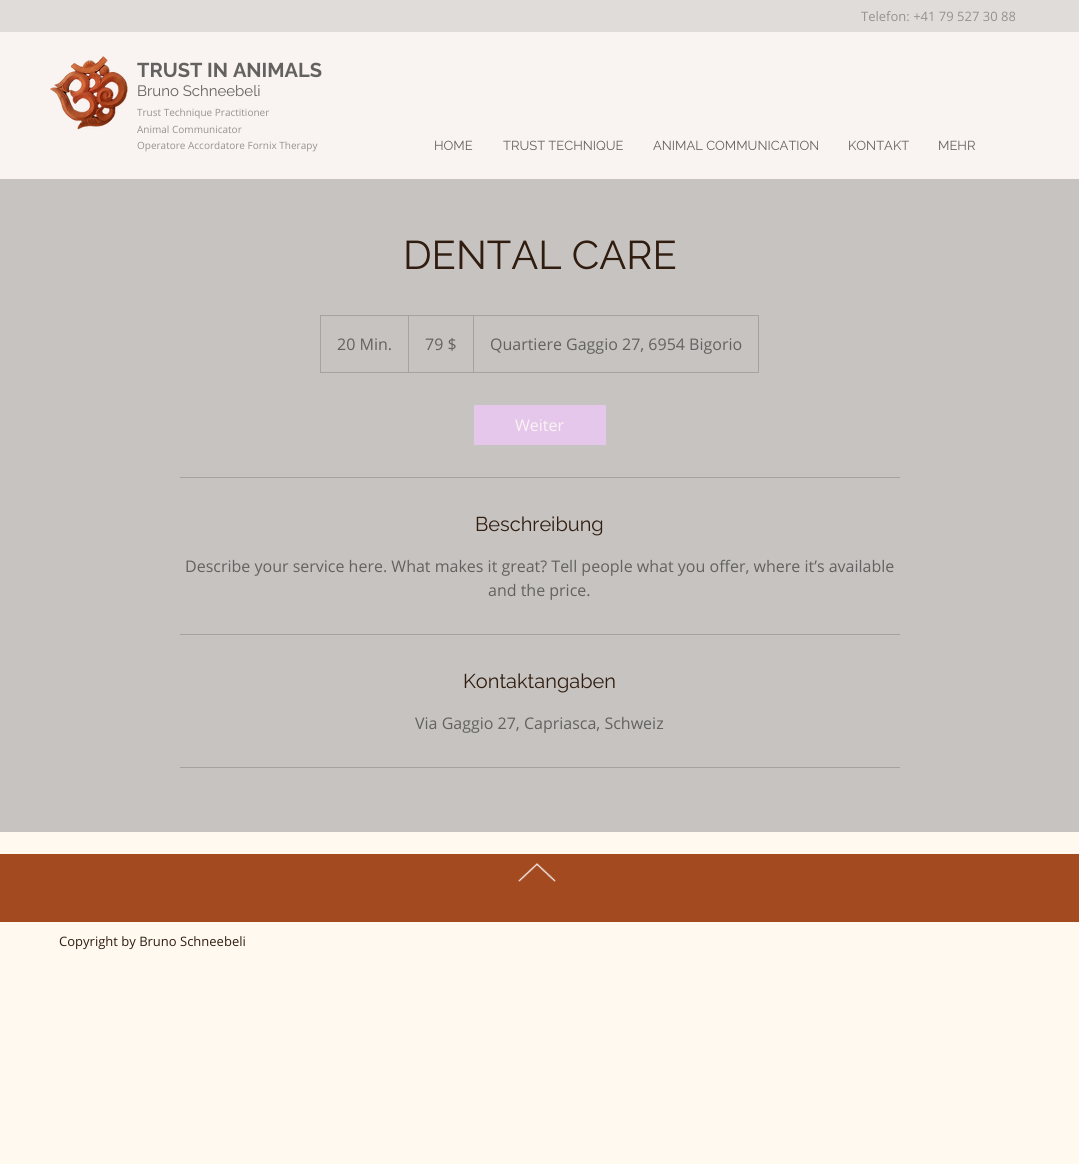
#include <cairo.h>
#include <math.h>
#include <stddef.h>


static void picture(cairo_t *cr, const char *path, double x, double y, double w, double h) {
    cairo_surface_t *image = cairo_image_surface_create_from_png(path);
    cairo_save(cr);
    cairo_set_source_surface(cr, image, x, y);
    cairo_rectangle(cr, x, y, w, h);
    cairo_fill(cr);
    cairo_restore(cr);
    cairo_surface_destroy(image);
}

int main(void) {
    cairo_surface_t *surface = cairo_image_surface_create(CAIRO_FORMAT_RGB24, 1079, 1164);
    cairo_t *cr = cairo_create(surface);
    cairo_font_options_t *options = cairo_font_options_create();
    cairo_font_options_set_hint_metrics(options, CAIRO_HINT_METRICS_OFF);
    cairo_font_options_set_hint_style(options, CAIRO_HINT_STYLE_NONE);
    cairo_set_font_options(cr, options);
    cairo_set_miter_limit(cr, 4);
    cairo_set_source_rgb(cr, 1, 0.973, 0.941);
    cairo_paint(cr);
    cairo_set_source_rgb(cr, 0.878, 0.863, 0.851);
    cairo_rectangle(cr, 0, 0, 1079, 32);
    cairo_fill(cr);
    cairo_select_font_face(cr, "Open Sans", CAIRO_FONT_SLANT_NORMAL, CAIRO_FONT_WEIGHT_NORMAL);
    cairo_set_font_size(cr, 13);
    cairo_set_source_rgb(cr, 0.584, 0.573, 0.569);
    cairo_move_to(cr, 861, 21);
    cairo_show_text(cr, "Telefon: +41 79 527 30 88");
    cairo_set_source_rgb(cr, 0.976, 0.957, 0.945);
    cairo_rectangle(cr, 0, 32, 1079, 147);
    cairo_fill(cr);
    picture(cr, "img1.png", 50, 56, 78, 74);
    cairo_select_font_face(cr, "Raleway", CAIRO_FONT_SLANT_NORMAL, CAIRO_FONT_WEIGHT_BOLD);
    cairo_set_font_size(cr, 20);
    cairo_set_source_rgb(cr, 0.388, 0.384, 0.376);
    cairo_move_to(cr, 137, 77);
    cairo_show_text(cr, "TRUST IN ANIMALS");
    cairo_select_font_face(cr, "Raleway", CAIRO_FONT_SLANT_NORMAL, CAIRO_FONT_WEIGHT_NORMAL);
    cairo_set_font_size(cr, 15);
    cairo_move_to(cr, 137, 96);
    cairo_show_text(cr, "Bruno Schneebeli");
    cairo_select_font_face(cr, "Open Sans", CAIRO_FONT_SLANT_NORMAL, CAIRO_FONT_WEIGHT_NORMAL);
    cairo_set_font_size(cr, 10);
    cairo_set_source_rgb(cr, 0.584, 0.573, 0.569);
    cairo_move_to(cr, 137, 116);
    cairo_show_text(cr, "Trust Technique Practitioner");
    cairo_move_to(cr, 137, 133);
    cairo_show_text(cr, "Animal Communicator");
    cairo_move_to(cr, 137, 149);
    cairo_show_text(cr, "Operatore Accordatore Fornix Therapy");
    cairo_select_font_face(cr, "Raleway", CAIRO_FONT_SLANT_NORMAL, CAIRO_FONT_WEIGHT_NORMAL);
    cairo_set_font_size(cr, 13);
    cairo_set_source_rgb(cr, 0.388, 0.384, 0.376);
    cairo_move_to(cr, 434, 150);
    cairo_show_text(cr, "HOME");
    cairo_move_to(cr, 503, 150);
    cairo_show_text(cr, "TRUST TECHNIQUE");
    cairo_move_to(cr, 653, 150);
    cairo_show_text(cr, "ANIMAL COMMUNICATION");
    cairo_move_to(cr, 848, 150);
    cairo_show_text(cr, "KONTAKT");
    cairo_move_to(cr, 938, 150);
    cairo_show_text(cr, "MEHR");
    cairo_set_source_rgb(cr, 0.776, 0.765, 0.757);
    cairo_rectangle(cr, 0, 179, 1079, 653);
    cairo_fill(cr);
    cairo_set_font_size(cr, 40);
    cairo_set_source_rgb(cr, 0.188, 0.114, 0.063);
    cairo_move_to(cr, 403, 269);
    cairo_show_text(cr, "DENTAL CARE");
    cairo_rectangle(cr, 320.5, 315.5, 438, 57);
    cairo_set_source_rgb(cr, 0.659, 0.635, 0.62);
    cairo_set_line_width(cr, 1);
    cairo_stroke(cr);
    cairo_select_font_face(cr, "Open Sans", CAIRO_FONT_SLANT_NORMAL, CAIRO_FONT_WEIGHT_NORMAL);
    cairo_set_font_size(cr, 16);
    cairo_set_source_rgb(cr, 0.388, 0.384, 0.376);
    cairo_move_to(cr, 337, 350);
    cairo_show_text(cr, "20 Min.");
    cairo_set_source_rgb(cr, 0.659, 0.635, 0.62);
    cairo_new_path(cr);
    cairo_move_to(cr, 408, 372);
    cairo_line_to(cr, 408, 315);
    cairo_line_to(cr, 409, 316);
    cairo_line_to(cr, 409, 372);
    cairo_close_path(cr);
    cairo_fill(cr);
    cairo_set_source_rgb(cr, 0.388, 0.384, 0.376);
    cairo_move_to(cr, 425, 350);
    cairo_show_text(cr, "79 $");
    cairo_set_source_rgb(cr, 0.659, 0.635, 0.62);
    cairo_new_path(cr);
    cairo_move_to(cr, 473, 372);
    cairo_line_to(cr, 473, 315);
    cairo_line_to(cr, 474, 316);
    cairo_line_to(cr, 474, 372);
    cairo_close_path(cr);
    cairo_fill(cr);
    cairo_set_source_rgb(cr, 0.388, 0.384, 0.376);
    cairo_move_to(cr, 490, 350);
    cairo_show_text(cr, "Quartiere Gaggio 27, 6954 Bigorio");
    cairo_set_source_rgb(cr, 0.902, 0.78, 0.922);
    cairo_rectangle(cr, 474, 405, 132, 40);
    cairo_fill(cr);
    cairo_set_source_rgb(cr, 0.973, 0.957, 0.945);
    cairo_move_to(cr, 515, 431);
    cairo_show_text(cr, "Weiter");
    cairo_set_source_rgb(cr, 0.659, 0.635, 0.62);
    cairo_rectangle(cr, 180, 477, 720, 1);
    cairo_fill(cr);
    cairo_select_font_face(cr, "Raleway", CAIRO_FONT_SLANT_NORMAL, CAIRO_FONT_WEIGHT_NORMAL);
    cairo_set_font_size(cr, 20);
    cairo_set_source_rgb(cr, 0.188, 0.114, 0.063);
    cairo_move_to(cr, 475, 531);
    cairo_show_text(cr, "Beschreibung");
    cairo_select_font_face(cr, "Open Sans", CAIRO_FONT_SLANT_NORMAL, CAIRO_FONT_WEIGHT_NORMAL);
    cairo_set_font_size(cr, 16);
    cairo_set_source_rgb(cr, 0.388, 0.384, 0.376);
    cairo_move_to(cr, 185, 572);
    cairo_show_text(cr, "Describe your service here. What makes it great? Tell people what you offer, where it’s available");
    cairo_move_to(cr, 488, 596);
    cairo_show_text(cr, "and the price.");
    cairo_set_source_rgb(cr, 0.659, 0.635, 0.62);
    cairo_rectangle(cr, 180, 634, 720, 1);
    cairo_fill(cr);
    cairo_select_font_face(cr, "Raleway", CAIRO_FONT_SLANT_NORMAL, CAIRO_FONT_WEIGHT_NORMAL);
    cairo_set_font_size(cr, 20);
    cairo_set_source_rgb(cr, 0.188, 0.114, 0.063);
    cairo_move_to(cr, 463, 688);
    cairo_show_text(cr, "Kontaktangaben");
    cairo_select_font_face(cr, "Open Sans", CAIRO_FONT_SLANT_NORMAL, CAIRO_FONT_WEIGHT_NORMAL);
    cairo_set_font_size(cr, 16);
    cairo_set_source_rgb(cr, 0.388, 0.384, 0.376);
    cairo_move_to(cr, 415, 729);
    cairo_show_text(cr, "Via Gaggio 27, Capriasca, Schweiz");
    cairo_set_source_rgb(cr, 0.659, 0.635, 0.62);
    cairo_rectangle(cr, 180, 767, 720, 1);
    cairo_fill(cr);
    cairo_set_source_rgb(cr, 0.639, 0.29, 0.129);
    cairo_rectangle(cr, 0, 854, 1079, 68);
    cairo_fill(cr);
    picture(cr, "img2.png", 518, 863, 38, 19);
    cairo_set_font_size(cr, 13);
    cairo_set_source_rgb(cr, 0.188, 0.114, 0.063);
    cairo_move_to(cr, 59, 946);
    cairo_show_text(cr, "Copyright by Bruno Schneebeli");
    cairo_surface_write_to_png(surface, "page.png");
    cairo_font_options_destroy(options);
    cairo_destroy(cr);
    cairo_surface_destroy(surface);
    return 0;
}
